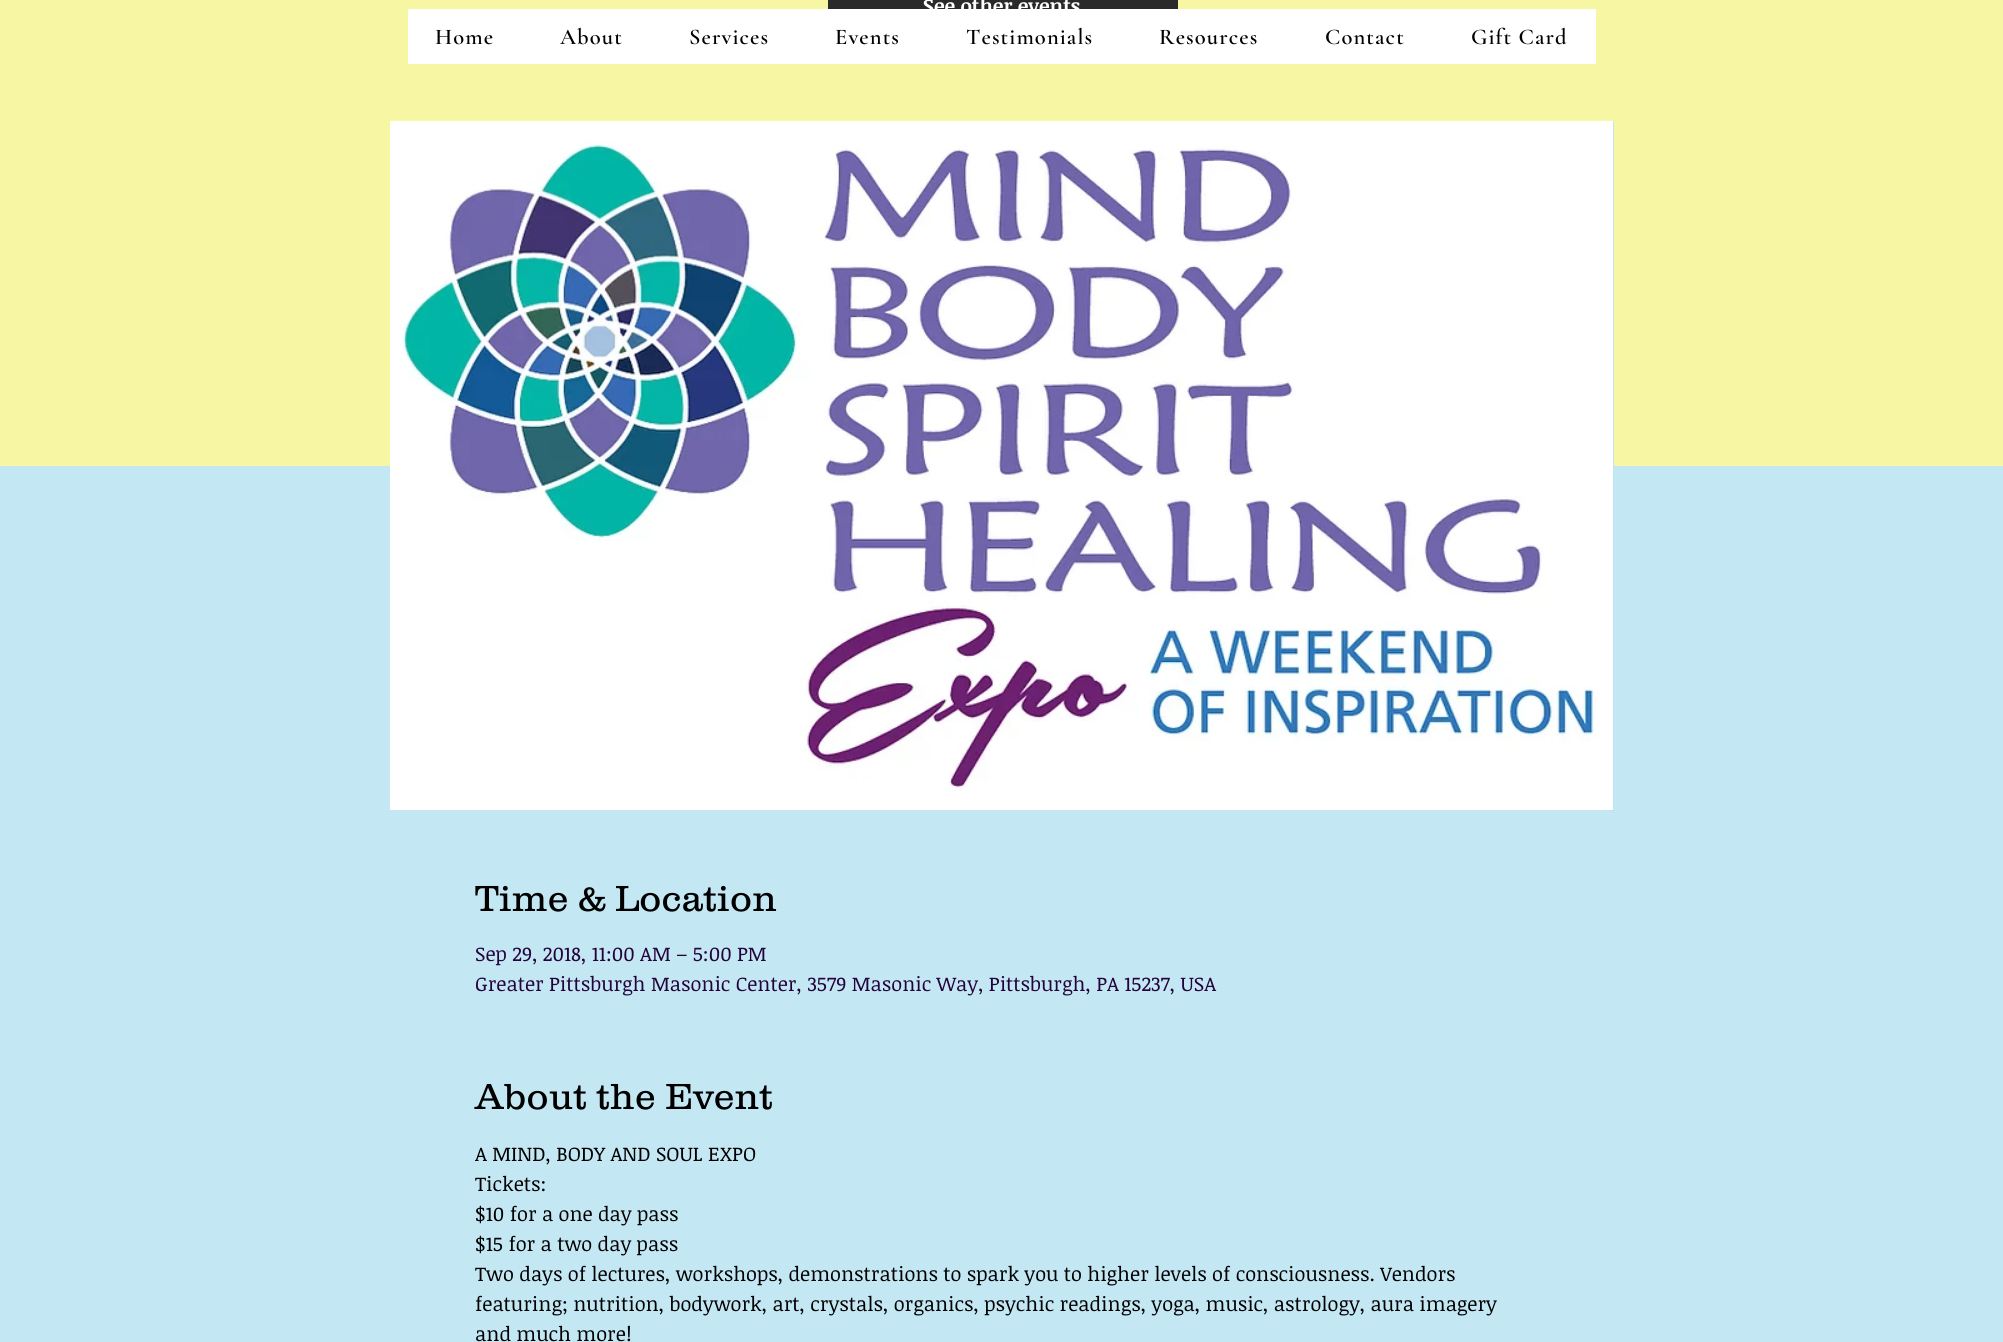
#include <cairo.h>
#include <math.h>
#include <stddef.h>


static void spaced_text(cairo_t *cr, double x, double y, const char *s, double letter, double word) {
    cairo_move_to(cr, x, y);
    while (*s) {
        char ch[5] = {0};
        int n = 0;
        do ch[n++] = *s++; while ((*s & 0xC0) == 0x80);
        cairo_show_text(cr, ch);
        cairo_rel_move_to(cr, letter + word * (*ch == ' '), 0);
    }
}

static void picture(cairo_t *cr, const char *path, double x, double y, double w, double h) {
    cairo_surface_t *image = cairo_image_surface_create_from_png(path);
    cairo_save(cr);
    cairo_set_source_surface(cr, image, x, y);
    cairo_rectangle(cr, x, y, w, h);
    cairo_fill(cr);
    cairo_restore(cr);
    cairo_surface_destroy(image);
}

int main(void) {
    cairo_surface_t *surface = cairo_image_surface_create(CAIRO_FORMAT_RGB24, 2003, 1342);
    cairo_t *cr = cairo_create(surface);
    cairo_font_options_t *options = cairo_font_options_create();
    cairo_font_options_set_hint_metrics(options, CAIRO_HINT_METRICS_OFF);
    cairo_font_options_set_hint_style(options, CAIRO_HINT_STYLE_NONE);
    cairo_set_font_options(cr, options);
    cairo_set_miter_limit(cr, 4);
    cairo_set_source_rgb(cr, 0.769, 0.906, 0.957);
    cairo_paint(cr);
    cairo_set_source_rgb(cr, 0.965, 0.965, 0.639);
    cairo_rectangle(cr, 0, 0, 2003, 466);
    cairo_fill(cr);
    cairo_set_source_rgb(cr, 0.165, 0.165, 0.165);
    cairo_rectangle(cr, 828, 0, 350, 9);
    cairo_fill(cr);
    cairo_select_font_face(cr, "Noticia Text", CAIRO_FONT_SLANT_NORMAL, CAIRO_FONT_WEIGHT_BOLD);
    cairo_set_font_size(cr, 20);
    cairo_set_source_rgb(cr, 1, 1, 1);
    cairo_move_to(cr, 923, 13);
    cairo_show_text(cr, "See other events");
    cairo_set_source_rgb(cr, 0.471, 0.745, 0.941);
    cairo_rectangle(cr, 390, 121, 1224, 690);
    cairo_fill(cr);
    picture(cr, "img1.png", 390, 120, 1224, 691);
    cairo_select_font_face(cr, "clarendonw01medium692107 Light", CAIRO_FONT_SLANT_NORMAL, CAIRO_FONT_WEIGHT_NORMAL);
    cairo_set_font_size(cr, 37.5);
    cairo_set_source_rgb(cr, 0, 0, 0);
    cairo_move_to(cr, 475, 911);
    cairo_show_text(cr, "Time & Location");
    cairo_select_font_face(cr, "Noticia Text", CAIRO_FONT_SLANT_NORMAL, CAIRO_FONT_WEIGHT_NORMAL);
    cairo_set_font_size(cr, 20);
    cairo_set_source_rgb(cr, 0.141, 0.012, 0.235);
    cairo_move_to(cr, 475, 961);
    cairo_show_text(cr, "Sep 29, 2018, 11:00 AM – 5:00 PM");
    cairo_move_to(cr, 475, 991);
    cairo_show_text(cr, "Greater Pittsburgh Masonic Center, 3579 Masonic Way, Pittsburgh, PA 15237, USA");
    cairo_select_font_face(cr, "clarendonw01medium692107 Light", CAIRO_FONT_SLANT_NORMAL, CAIRO_FONT_WEIGHT_NORMAL);
    cairo_set_font_size(cr, 37.5);
    cairo_set_source_rgb(cr, 0, 0, 0);
    cairo_move_to(cr, 475, 1109);
    cairo_show_text(cr, "About the Event");
    cairo_select_font_face(cr, "Noticia Text", CAIRO_FONT_SLANT_NORMAL, CAIRO_FONT_WEIGHT_NORMAL);
    cairo_set_font_size(cr, 20);
    cairo_move_to(cr, 475, 1161);
    cairo_show_text(cr, "A MIND, BODY AND SOUL EXPO");
    cairo_move_to(cr, 475, 1191);
    cairo_show_text(cr, "Tickets:");
    cairo_move_to(cr, 475, 1221);
    cairo_show_text(cr, "$10 for a one day pass");
    cairo_move_to(cr, 475, 1251);
    cairo_show_text(cr, "$15 for a two day pass");
    cairo_move_to(cr, 475, 1281);
    cairo_show_text(cr, "Two days of lectures, workshops, demonstrations to spark you to higher levels of consciousness. Vendors");
    cairo_move_to(cr, 475, 1311);
    cairo_show_text(cr, "featuring; nutrition, bodywork, art, crystals, organics, psychic readings, yoga, music, astrology, aura imagery");
    cairo_move_to(cr, 475, 1341);
    cairo_show_text(cr, "and much more!");
    cairo_set_source_rgb(cr, 1, 1, 1);
    cairo_rectangle(cr, 408, 9, 1188, 55);
    cairo_fill(cr);
    cairo_select_font_face(cr, "Cormorant Garamond SemiBold", CAIRO_FONT_SLANT_NORMAL, CAIRO_FONT_WEIGHT_NORMAL);
    cairo_set_font_size(cr, 22.5);
    cairo_set_source_rgb(cr, 0, 0, 0);
    spaced_text(cr, 435, 44, "Home", 1.1, 0);
    spaced_text(cr, 560, 44, "About", 1.1, 0);
    spaced_text(cr, 689, 44, "Services", 1.1, 0);
    spaced_text(cr, 835, 44, "Events", 1.1, 0);
    spaced_text(cr, 966, 44, "Testimonials", 1.1, 0);
    spaced_text(cr, 1159, 44, "Resources", 1.1, 0);
    spaced_text(cr, 1325, 44, "Contact", 1.1, 0);
    spaced_text(cr, 1471, 44, "Gift Card", 1.1, 0);
    cairo_surface_write_to_png(surface, "page.png");
    cairo_font_options_destroy(options);
    cairo_destroy(cr);
    cairo_surface_destroy(surface);
    return 0;
}
